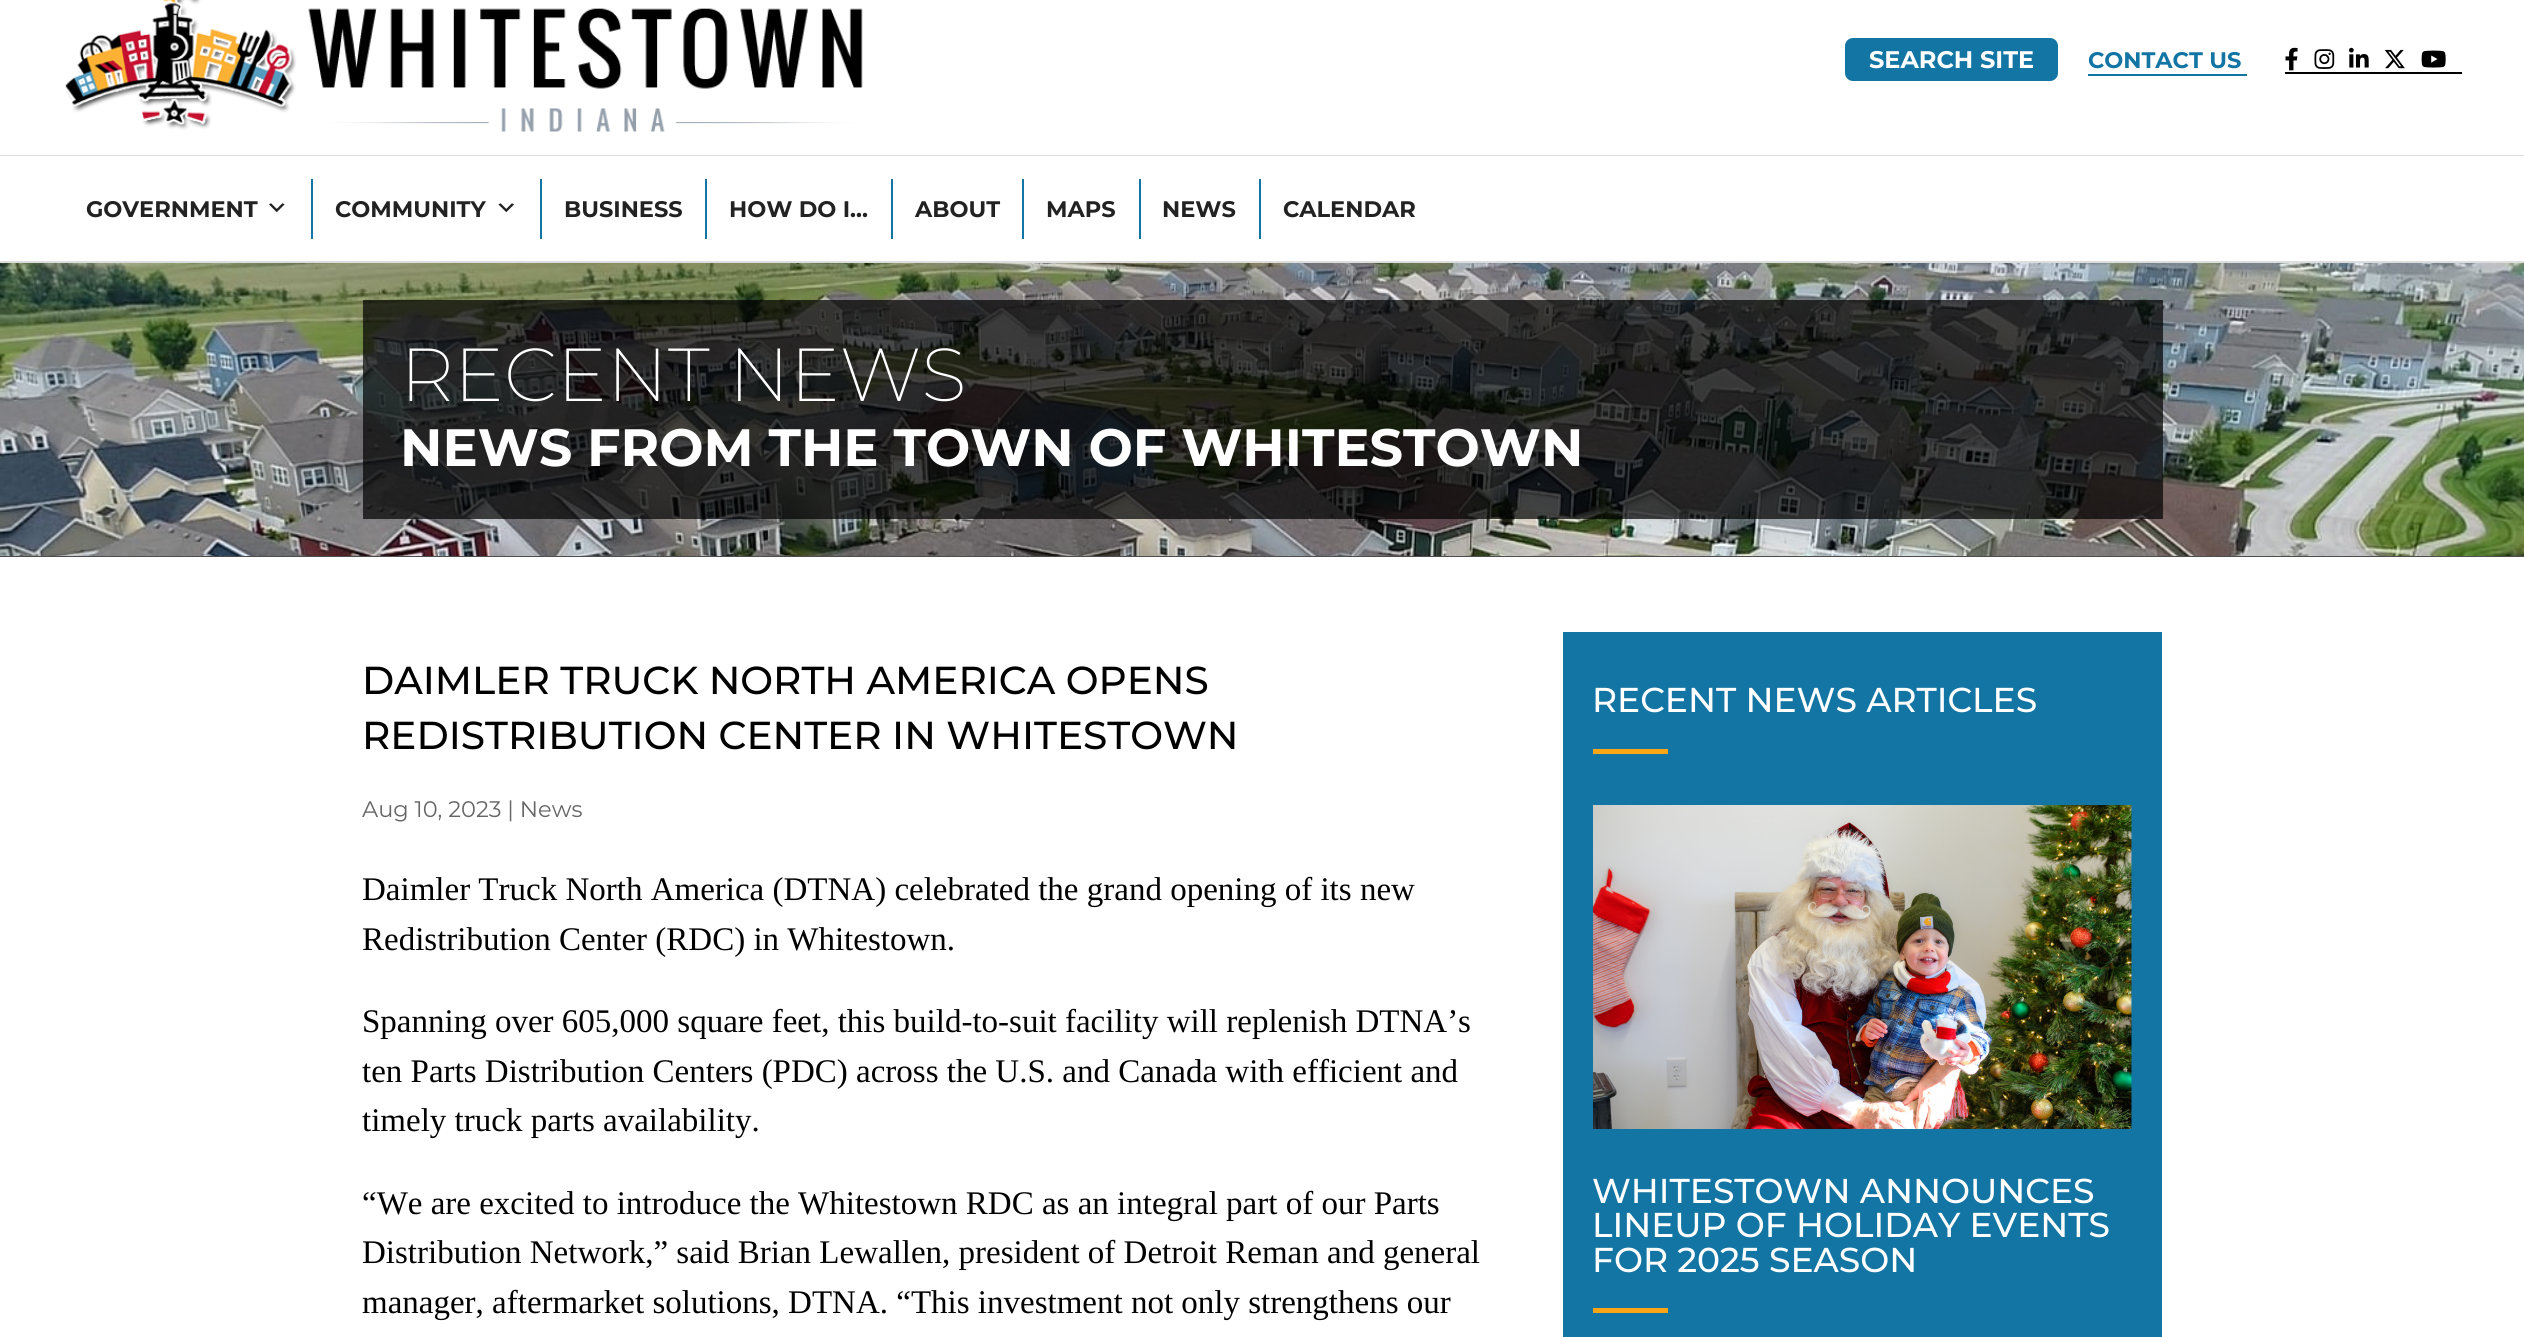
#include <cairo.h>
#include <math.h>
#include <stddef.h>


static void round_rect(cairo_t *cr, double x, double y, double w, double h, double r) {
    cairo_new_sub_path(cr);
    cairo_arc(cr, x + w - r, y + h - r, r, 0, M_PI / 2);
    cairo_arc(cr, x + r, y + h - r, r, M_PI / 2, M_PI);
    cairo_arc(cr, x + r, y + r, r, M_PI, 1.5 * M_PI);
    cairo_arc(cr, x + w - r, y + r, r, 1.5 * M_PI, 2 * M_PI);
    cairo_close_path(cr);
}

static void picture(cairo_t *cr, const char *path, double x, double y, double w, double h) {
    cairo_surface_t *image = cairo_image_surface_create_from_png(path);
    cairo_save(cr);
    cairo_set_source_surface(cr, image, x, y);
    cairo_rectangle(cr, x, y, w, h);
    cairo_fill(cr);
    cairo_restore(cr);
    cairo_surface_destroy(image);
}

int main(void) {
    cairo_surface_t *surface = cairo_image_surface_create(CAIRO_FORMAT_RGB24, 2524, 1337);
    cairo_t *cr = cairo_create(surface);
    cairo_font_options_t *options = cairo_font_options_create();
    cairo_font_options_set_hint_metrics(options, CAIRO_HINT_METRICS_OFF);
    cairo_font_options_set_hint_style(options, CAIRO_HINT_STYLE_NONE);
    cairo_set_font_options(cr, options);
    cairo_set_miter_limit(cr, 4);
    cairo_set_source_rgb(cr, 1, 1, 1);
    cairo_paint(cr);
    cairo_set_source_rgb(cr, 0.867, 0.867, 0.867);
    cairo_rectangle(cr, 0, 155, 2524, 1);
    cairo_fill(cr);
    picture(cr, "img1.png", 65, 0, 798, 132);
    cairo_set_source_rgb(cr, 0.078, 0.459, 0.643);
    round_rect(cr, 1845, 38, 213, 43, 8);
    cairo_fill(cr);
    cairo_select_font_face(cr, "Montserrat", CAIRO_FONT_SLANT_NORMAL, CAIRO_FONT_WEIGHT_BOLD);
    cairo_set_font_size(cr, 24);
    cairo_set_source_rgb(cr, 1, 1, 1);
    cairo_move_to(cr, 1869, 68);
    cairo_show_text(cr, "SEARCH SITE");
    cairo_set_font_size(cr, 22.5);
    cairo_set_source_rgb(cr, 0.078, 0.459, 0.643);
    cairo_move_to(cr, 2088, 68);
    cairo_show_text(cr, "CONTACT US");
    cairo_rectangle(cr, 2088, 74, 159, 2);
    cairo_fill(cr);
    cairo_set_source_rgb(cr, 0, 0, 0);
    cairo_rectangle(cr, 2285, 72, 177, 2);
    cairo_fill(cr);
    picture(cr, "img2.png", 2285, 47, 13, 24);
    picture(cr, "img3.png", 2314, 49, 21, 20);
    picture(cr, "img4.png", 2349, 47, 20, 21);
    picture(cr, "img5.png", 2384, 49, 21, 20);
    picture(cr, "img6.png", 2421, 50, 25, 18);
    cairo_set_source_rgb(cr, 0.867, 0.867, 0.867);
    cairo_rectangle(cr, 0, 261, 2524, 2);
    cairo_fill(cr);
    cairo_set_source_rgb(cr, 0.133, 0.133, 0.133);
    cairo_move_to(cr, 86, 217);
    cairo_show_text(cr, "GOVERNMENT");
    picture(cr, "img7.png", 269, 203, 16, 10);
    cairo_set_source_rgb(cr, 0.078, 0.459, 0.643);
    cairo_rectangle(cr, 311, 179, 2, 60);
    cairo_fill(cr);
    cairo_set_source_rgb(cr, 0.133, 0.133, 0.133);
    cairo_move_to(cr, 335, 217);
    cairo_show_text(cr, "COMMUNITY");
    picture(cr, "img8.png", 498, 203, 16, 10);
    cairo_set_source_rgb(cr, 0.078, 0.459, 0.643);
    cairo_rectangle(cr, 540, 179, 2, 60);
    cairo_fill(cr);
    cairo_set_source_rgb(cr, 0.133, 0.133, 0.133);
    cairo_move_to(cr, 564, 217);
    cairo_show_text(cr, "BUSINESS");
    cairo_set_source_rgb(cr, 0.078, 0.459, 0.643);
    cairo_rectangle(cr, 705, 179, 2, 60);
    cairo_fill(cr);
    cairo_set_source_rgb(cr, 0.133, 0.133, 0.133);
    cairo_move_to(cr, 729, 217);
    cairo_show_text(cr, "HOW DO I…");
    cairo_set_source_rgb(cr, 0.078, 0.459, 0.643);
    cairo_rectangle(cr, 891, 179, 2, 60);
    cairo_fill(cr);
    cairo_set_source_rgb(cr, 0.133, 0.133, 0.133);
    cairo_move_to(cr, 915, 217);
    cairo_show_text(cr, "ABOUT");
    cairo_set_source_rgb(cr, 0.078, 0.459, 0.643);
    cairo_rectangle(cr, 1022, 179, 2, 60);
    cairo_fill(cr);
    cairo_set_source_rgb(cr, 0.133, 0.133, 0.133);
    cairo_move_to(cr, 1046, 217);
    cairo_show_text(cr, "MAPS");
    cairo_set_source_rgb(cr, 0.078, 0.459, 0.643);
    cairo_rectangle(cr, 1139, 179, 2, 60);
    cairo_fill(cr);
    cairo_set_source_rgb(cr, 0.133, 0.133, 0.133);
    cairo_move_to(cr, 1162, 217);
    cairo_show_text(cr, "NEWS");
    cairo_set_source_rgb(cr, 0.078, 0.459, 0.643);
    cairo_rectangle(cr, 1259, 179, 2, 60);
    cairo_fill(cr);
    cairo_set_source_rgb(cr, 0.133, 0.133, 0.133);
    cairo_move_to(cr, 1283, 217);
    cairo_show_text(cr, "CALENDAR");
    cairo_set_source_rgb(cr, 0.302, 0.302, 0.302);
    cairo_rectangle(cr, 0, 556, 2524, 1);
    cairo_fill(cr);
    picture(cr, "img9.png", 0, 263, 2524, 293);
    cairo_set_source_rgba(cr, 0, 0, 0, 0.7);
    cairo_rectangle(cr, 363, 300, 1800, 219);
    cairo_fill(cr);
    cairo_select_font_face(cr, "Montserrat ExtraLight", CAIRO_FONT_SLANT_NORMAL, CAIRO_FONT_WEIGHT_NORMAL);
    cairo_set_font_size(cr, 75);
    cairo_set_source_rgb(cr, 1, 1, 1);
    cairo_move_to(cr, 400, 401);
    cairo_show_text(cr, "RECENT NEWS");
    cairo_select_font_face(cr, "Montserrat", CAIRO_FONT_SLANT_NORMAL, CAIRO_FONT_WEIGHT_BOLD);
    cairo_set_font_size(cr, 52.5);
    cairo_move_to(cr, 400, 466);
    cairo_show_text(cr, "NEWS FROM THE TOWN OF WHITESTOWN");
    cairo_select_font_face(cr, "Montserrat Medium", CAIRO_FONT_SLANT_NORMAL, CAIRO_FONT_WEIGHT_NORMAL);
    cairo_set_font_size(cr, 39);
    cairo_set_source_rgb(cr, 0, 0, 0);
    cairo_move_to(cr, 362, 694);
    cairo_show_text(cr, "DAIMLER TRUCK NORTH AMERICA OPENS");
    cairo_move_to(cr, 362, 749);
    cairo_show_text(cr, "REDISTRIBUTION CENTER IN WHITESTOWN");
    cairo_select_font_face(cr, "Montserrat", CAIRO_FONT_SLANT_NORMAL, CAIRO_FONT_WEIGHT_NORMAL);
    cairo_set_font_size(cr, 22.5);
    cairo_set_source_rgb(cr, 0.4, 0.4, 0.4);
    cairo_move_to(cr, 362, 817);
    cairo_show_text(cr, "Aug 10, 2023 | News");
    cairo_select_font_face(cr, "Liberation Serif", CAIRO_FONT_SLANT_NORMAL, CAIRO_FONT_WEIGHT_NORMAL);
    cairo_set_font_size(cr, 33);
    cairo_set_source_rgb(cr, 0, 0, 0);
    cairo_move_to(cr, 362, 900);
    cairo_show_text(cr, "Daimler Truck North America (DTNA) celebrated the grand opening of its new");
    cairo_move_to(cr, 362, 950);
    cairo_show_text(cr, "Redistribution Center (RDC) in Whitestown.");
    cairo_move_to(cr, 362, 1032);
    cairo_show_text(cr, "Spanning over 605,000 square feet, this build-to-suit facility will replenish DTNA’s");
    cairo_move_to(cr, 362, 1082);
    cairo_show_text(cr, "ten Parts Distribution Centers (PDC) across the U.S. and Canada with efficient and");
    cairo_move_to(cr, 362, 1131);
    cairo_show_text(cr, "timely truck parts availability.");
    cairo_move_to(cr, 362, 1214);
    cairo_show_text(cr, "“We are excited to introduce the Whitestown RDC as an integral part of our Parts");
    cairo_move_to(cr, 362, 1263);
    cairo_show_text(cr, "Distribution Network,” said Brian Lewallen, president of Detroit Reman and general");
    cairo_move_to(cr, 362, 1313);
    cairo_show_text(cr, "manager, aftermarket solutions, DTNA. “This investment not only strengthens our");
    cairo_set_source_rgb(cr, 0.078, 0.459, 0.643);
    cairo_rectangle(cr, 1563, 632, 599, 705);
    cairo_fill(cr);
    cairo_select_font_face(cr, "Montserrat Medium", CAIRO_FONT_SLANT_NORMAL, CAIRO_FONT_WEIGHT_NORMAL);
    cairo_set_font_size(cr, 34.5);
    cairo_set_source_rgb(cr, 1, 1, 1);
    cairo_move_to(cr, 1592, 712);
    cairo_show_text(cr, "RECENT NEWS ARTICLES");
    cairo_set_source_rgb(cr, 0.988, 0.647, 0.086);
    cairo_rectangle(cr, 1593, 749, 75, 5);
    cairo_fill(cr);
    picture(cr, "img10.png", 1593, 805, 539, 324);
    cairo_set_source_rgb(cr, 1, 1, 1);
    cairo_move_to(cr, 1592, 1203);
    cairo_show_text(cr, "WHITESTOWN ANNOUNCES");
    cairo_move_to(cr, 1592, 1237);
    cairo_show_text(cr, "LINEUP OF HOLIDAY EVENTS");
    cairo_move_to(cr, 1592, 1272);
    cairo_show_text(cr, "FOR 2025 SEASON");
    cairo_set_source_rgb(cr, 0.988, 0.647, 0.086);
    cairo_rectangle(cr, 1593, 1308, 75, 5);
    cairo_fill(cr);
    cairo_surface_write_to_png(surface, "page.png");
    cairo_font_options_destroy(options);
    cairo_destroy(cr);
    cairo_surface_destroy(surface);
    return 0;
}
